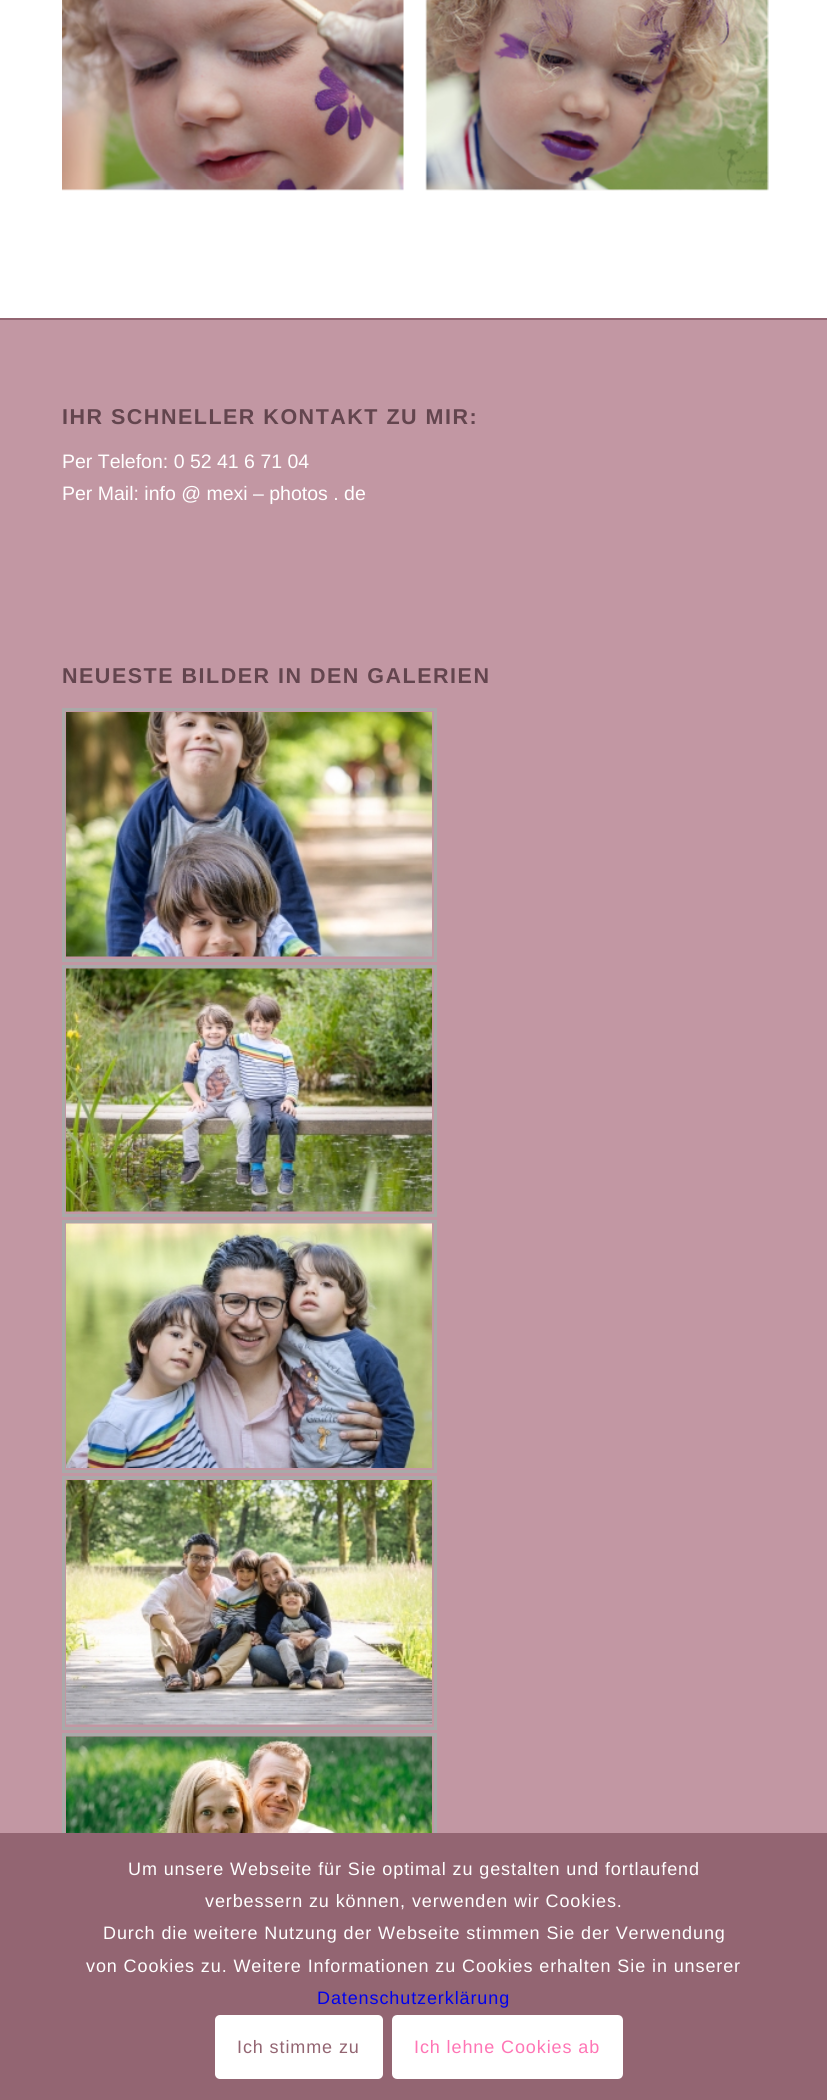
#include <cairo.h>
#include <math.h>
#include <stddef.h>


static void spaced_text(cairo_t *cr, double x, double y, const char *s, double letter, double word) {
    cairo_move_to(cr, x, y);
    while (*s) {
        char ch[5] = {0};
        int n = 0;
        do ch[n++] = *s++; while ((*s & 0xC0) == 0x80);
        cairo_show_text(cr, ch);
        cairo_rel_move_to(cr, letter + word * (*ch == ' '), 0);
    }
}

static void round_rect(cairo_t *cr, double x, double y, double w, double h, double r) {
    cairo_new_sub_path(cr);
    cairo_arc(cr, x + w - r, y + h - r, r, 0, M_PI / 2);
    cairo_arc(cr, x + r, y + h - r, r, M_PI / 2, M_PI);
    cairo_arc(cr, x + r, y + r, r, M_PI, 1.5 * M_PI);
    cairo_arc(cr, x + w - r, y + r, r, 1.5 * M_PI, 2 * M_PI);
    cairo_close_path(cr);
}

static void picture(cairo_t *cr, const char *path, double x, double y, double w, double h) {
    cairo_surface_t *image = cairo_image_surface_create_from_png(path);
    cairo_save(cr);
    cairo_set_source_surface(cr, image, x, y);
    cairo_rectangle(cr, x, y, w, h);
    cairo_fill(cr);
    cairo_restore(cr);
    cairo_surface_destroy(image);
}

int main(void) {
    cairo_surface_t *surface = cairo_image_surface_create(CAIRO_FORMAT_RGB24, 827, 2100);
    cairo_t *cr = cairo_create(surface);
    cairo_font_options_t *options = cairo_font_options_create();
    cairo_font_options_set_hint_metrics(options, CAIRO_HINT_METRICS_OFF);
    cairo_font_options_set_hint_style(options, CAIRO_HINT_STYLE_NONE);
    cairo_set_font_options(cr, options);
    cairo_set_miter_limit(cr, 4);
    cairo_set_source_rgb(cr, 1, 1, 1);
    cairo_paint(cr);
    picture(cr, "img1.png", 62, 0, 342, 191);
    picture(cr, "img2.png", 425, 0, 344, 191);
    cairo_set_source_rgb(cr, 0.761, 0.592, 0.639);
    cairo_rectangle(cr, 0, 320, 827, 1513);
    cairo_fill(cr);
    cairo_set_source_rgb(cr, 0.576, 0.396, 0.447);
    cairo_rectangle(cr, 0, 318, 827, 2);
    cairo_fill(cr);
    cairo_select_font_face(cr, "Liberation Sans", CAIRO_FONT_SLANT_NORMAL, CAIRO_FONT_WEIGHT_BOLD);
    cairo_set_font_size(cr, 21.5);
    cairo_set_source_rgb(cr, 0.388, 0.271, 0.306);
    spaced_text(cr, 62, 424, "IHR SCHNELLER KONTAKT ZU MIR:", 1.5, 0);
    cairo_select_font_face(cr, "Liberation Sans", CAIRO_FONT_SLANT_NORMAL, CAIRO_FONT_WEIGHT_NORMAL);
    cairo_set_font_size(cr, 19.5);
    cairo_set_source_rgb(cr, 1, 1, 1);
    cairo_move_to(cr, 62, 468);
    cairo_show_text(cr, "Per Telefon: 0 52 41 6 71 04");
    cairo_move_to(cr, 62, 500);
    cairo_show_text(cr, "Per Mail: info @ mexi – photos . de");
    cairo_select_font_face(cr, "Liberation Sans", CAIRO_FONT_SLANT_NORMAL, CAIRO_FONT_WEIGHT_BOLD);
    cairo_set_font_size(cr, 21.5);
    cairo_set_source_rgb(cr, 0.388, 0.271, 0.306);
    spaced_text(cr, 62, 683, "NEUESTE BILDER IN DEN GALERIEN", 1.5, 0);
    cairo_rectangle(cr, 63.5, 709.5, 372, 251);
    cairo_set_source_rgb(cr, 0.663, 0.663, 0.663);
    cairo_set_line_width(cr, 3);
    cairo_stroke(cr);
    picture(cr, "img3.png", 66, 712, 366, 245);
    cairo_rectangle(cr, 63.5, 966.5, 372, 249);
    cairo_stroke(cr);
    picture(cr, "img4.png", 66, 968, 366, 244);
    cairo_rectangle(cr, 63.5, 1221.5, 372, 250);
    cairo_stroke(cr);
    picture(cr, "img5.png", 66, 1223, 366, 245);
    cairo_rectangle(cr, 63.5, 1477.5, 372, 251);
    cairo_stroke(cr);
    picture(cr, "img6.png", 66, 1480, 366, 245);
    cairo_rectangle(cr, 63.5, 1734.5, 372, 249);
    cairo_stroke(cr);
    picture(cr, "img7.png", 66, 1736, 366, 97);
    cairo_set_source_rgb(cr, 0.576, 0.396, 0.447);
    cairo_rectangle(cr, 0, 1833, 827, 267);
    cairo_fill(cr);
    cairo_select_font_face(cr, "Liberation Sans", CAIRO_FONT_SLANT_NORMAL, CAIRO_FONT_WEIGHT_NORMAL);
    cairo_set_font_size(cr, 18);
    cairo_set_source_rgb(cr, 1, 1, 1);
    spaced_text(cr, 128, 1875, "Um unsere Webseite für Sie optimal zu gestalten und fortlaufend", 0.9, 0);
    spaced_text(cr, 205, 1907, "verbessern zu können, verwenden wir Cookies.", 0.9, 0);
    spaced_text(cr, 103, 1939, "Durch die weitere Nutzung der Webseite stimmen Sie der Verwendung", 0.9, 0);
    spaced_text(cr, 86, 1972, "von Cookies zu. Weitere Informationen zu Cookies erhalten Sie in unserer", 0.9, 0);
    cairo_set_source_rgb(cr, 0, 0, 0.933);
    spaced_text(cr, 317, 2004, "Datenschutzerklärung", 0.9, 0);
    cairo_set_source_rgb(cr, 1, 1, 1);
    round_rect(cr, 215, 2015, 168, 64, 5);
    cairo_fill(cr);
    cairo_set_source_rgb(cr, 0.576, 0.396, 0.447);
    spaced_text(cr, 237, 2053, "Ich stimme zu", 0.9, 0);
    cairo_set_source_rgb(cr, 1, 1, 1);
    round_rect(cr, 393.5, 2016.5, 228, 61, 3.5);
    cairo_fill_preserve(cr);
    cairo_stroke(cr);
    cairo_set_source_rgb(cr, 1, 0.459, 0.71);
    spaced_text(cr, 414, 2053, "Ich lehne Cookies ab", 0.9, 0);
    cairo_surface_write_to_png(surface, "page.png");
    cairo_font_options_destroy(options);
    cairo_destroy(cr);
    cairo_surface_destroy(surface);
    return 0;
}
